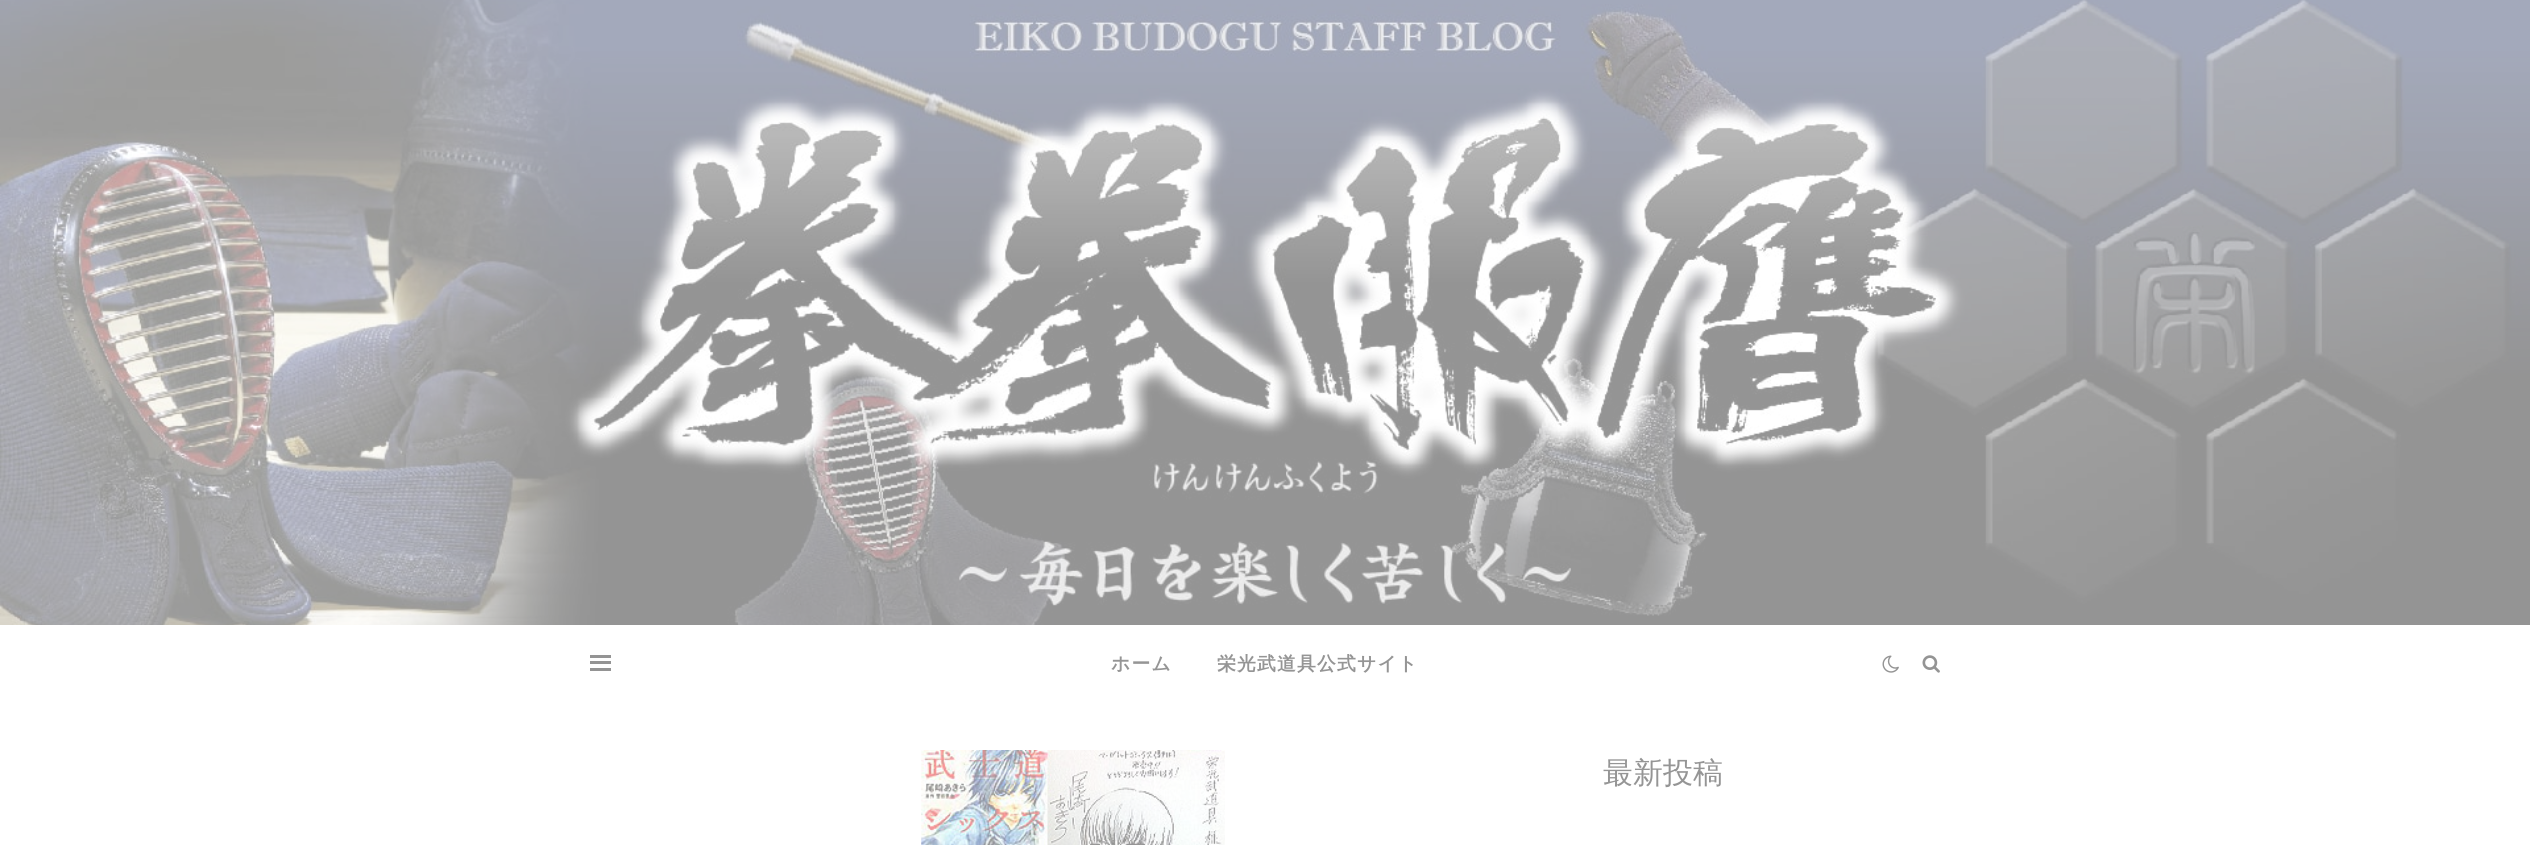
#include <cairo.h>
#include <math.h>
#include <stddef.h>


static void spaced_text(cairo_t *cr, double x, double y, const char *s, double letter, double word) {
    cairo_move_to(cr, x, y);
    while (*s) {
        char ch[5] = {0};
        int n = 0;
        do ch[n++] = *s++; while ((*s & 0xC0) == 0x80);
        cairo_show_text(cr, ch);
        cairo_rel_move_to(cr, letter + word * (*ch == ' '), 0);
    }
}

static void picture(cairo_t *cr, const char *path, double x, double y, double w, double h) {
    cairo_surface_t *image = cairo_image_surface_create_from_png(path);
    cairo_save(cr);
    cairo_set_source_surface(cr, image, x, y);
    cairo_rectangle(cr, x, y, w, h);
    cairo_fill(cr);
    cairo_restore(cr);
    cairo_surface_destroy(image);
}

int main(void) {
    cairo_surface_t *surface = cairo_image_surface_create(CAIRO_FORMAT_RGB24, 2530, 845);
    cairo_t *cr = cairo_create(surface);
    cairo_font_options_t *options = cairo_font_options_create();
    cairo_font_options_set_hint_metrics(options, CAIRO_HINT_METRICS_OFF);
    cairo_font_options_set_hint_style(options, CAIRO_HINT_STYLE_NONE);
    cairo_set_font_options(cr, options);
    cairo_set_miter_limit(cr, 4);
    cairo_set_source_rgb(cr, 1, 1, 1);
    cairo_paint(cr);
    picture(cr, "img1.png", 0, 0, 2530, 625);
    cairo_set_source_rgb(cr, 0.58, 0.58, 0.58);
    cairo_rectangle(cr, 590, 655, 21, 3);
    cairo_fill(cr);
    cairo_rectangle(cr, 590, 661, 21, 3);
    cairo_fill(cr);
    cairo_rectangle(cr, 590, 668, 21, 3);
    cairo_fill(cr);
    cairo_select_font_face(cr, "WenQuanYi Zen Hei", CAIRO_FONT_SLANT_NORMAL, CAIRO_FONT_WEIGHT_BOLD);
    cairo_set_font_size(cr, 18.75);
    cairo_set_source_rgb(cr, 0.584, 0.584, 0.584);
    spaced_text(cr, 1111, 670, "ホーム", 1.25, 0);
    spaced_text(cr, 1217, 670, "栄光武道具公式サイト", 1.25, 0);
    picture(cr, "img2.png", 1882, 655, 17, 18);
    picture(cr, "img3.png", 1922, 655, 18, 18);
    picture(cr, "img4.png", 921, 750, 304, 95);
    cairo_select_font_face(cr, "WenQuanYi Zen Hei Medium", CAIRO_FONT_SLANT_NORMAL, CAIRO_FONT_WEIGHT_NORMAL);
    cairo_set_font_size(cr, 30);
    cairo_move_to(cr, 1603, 783);
    cairo_show_text(cr, "最新投稿");
    cairo_surface_write_to_png(surface, "page.png");
    cairo_font_options_destroy(options);
    cairo_destroy(cr);
    cairo_surface_destroy(surface);
    return 0;
}
